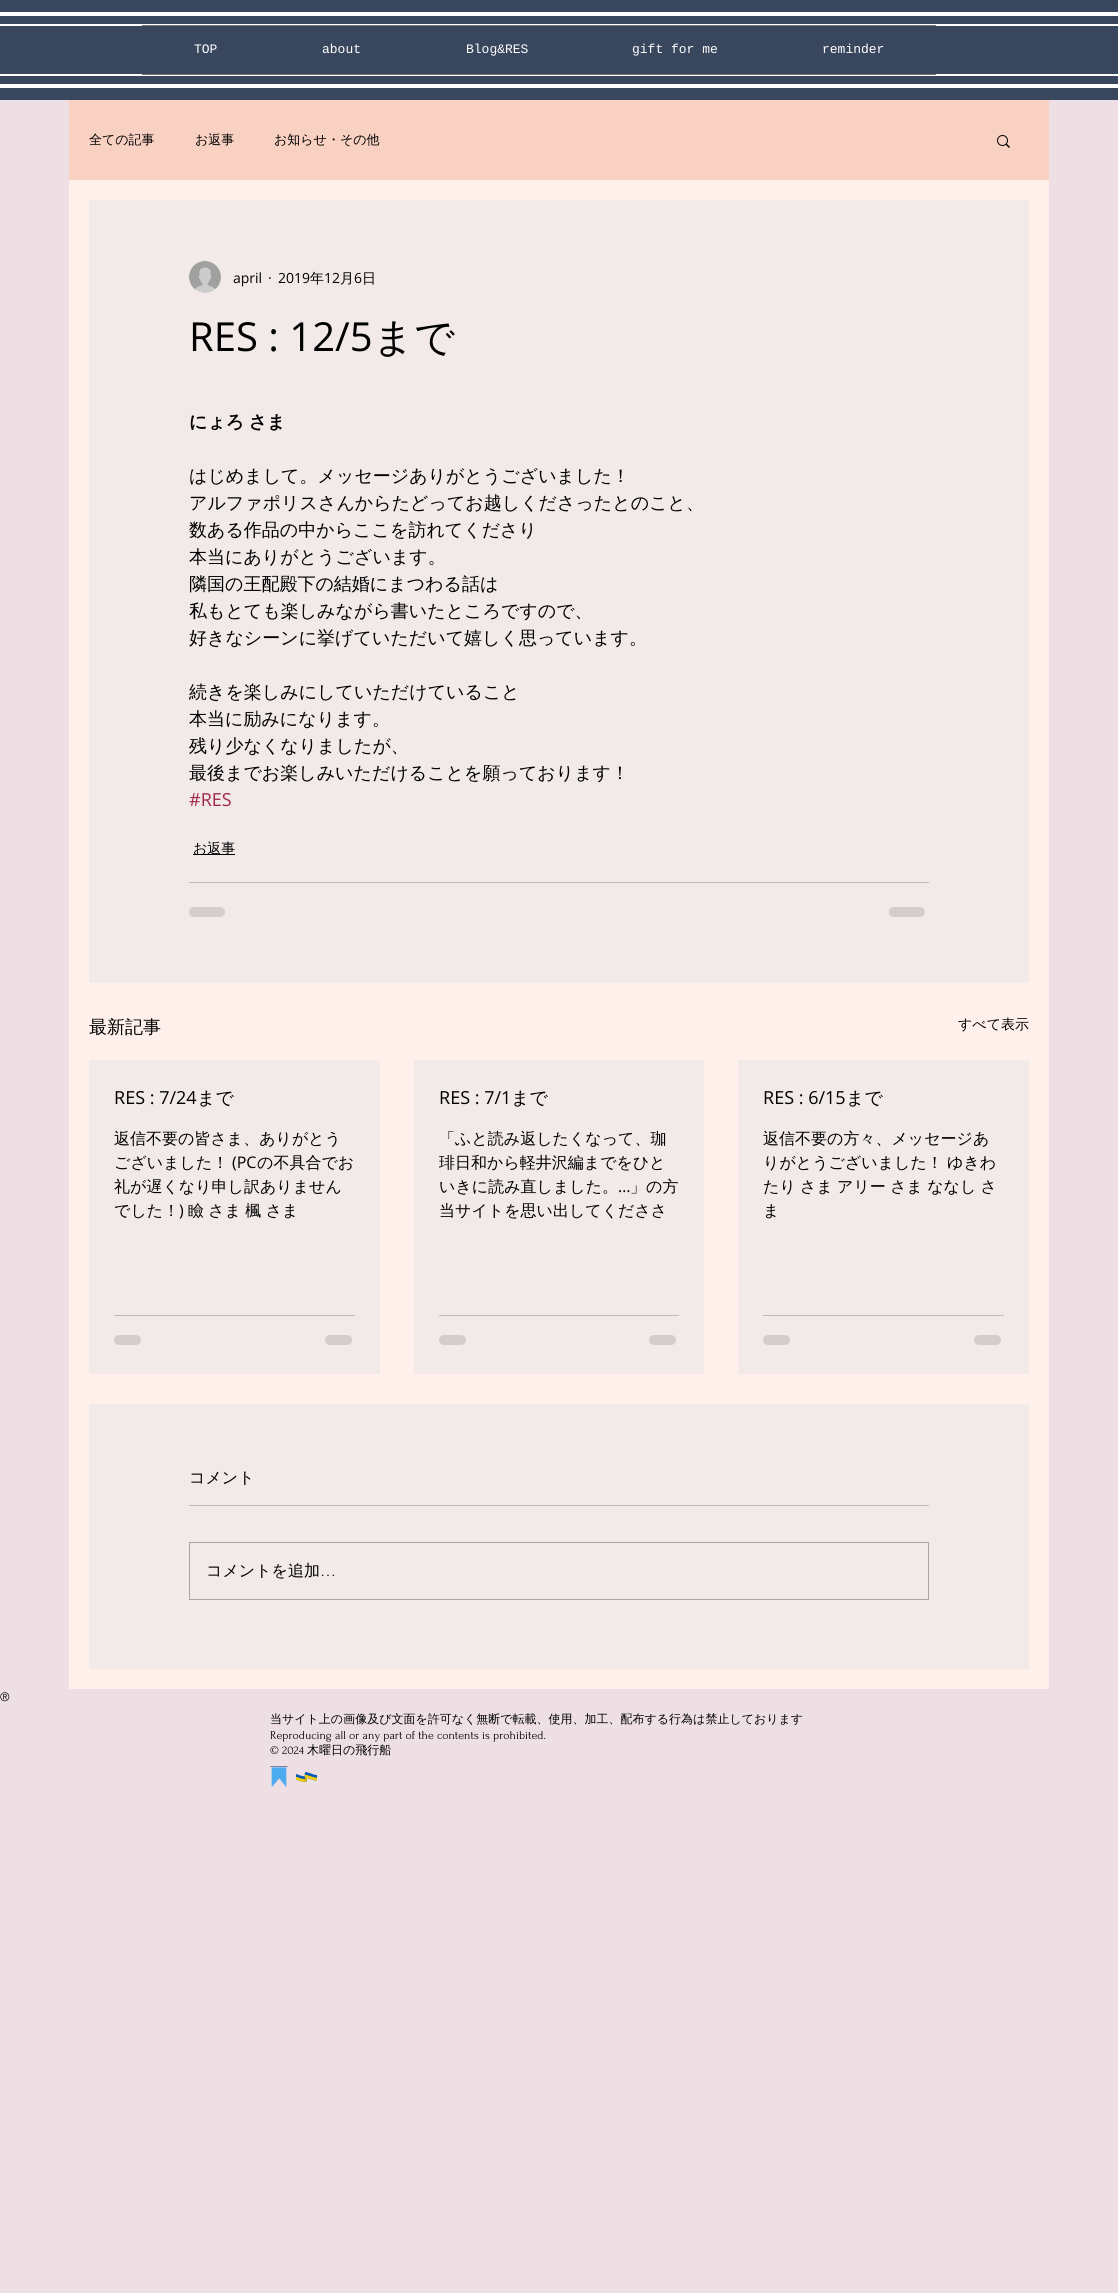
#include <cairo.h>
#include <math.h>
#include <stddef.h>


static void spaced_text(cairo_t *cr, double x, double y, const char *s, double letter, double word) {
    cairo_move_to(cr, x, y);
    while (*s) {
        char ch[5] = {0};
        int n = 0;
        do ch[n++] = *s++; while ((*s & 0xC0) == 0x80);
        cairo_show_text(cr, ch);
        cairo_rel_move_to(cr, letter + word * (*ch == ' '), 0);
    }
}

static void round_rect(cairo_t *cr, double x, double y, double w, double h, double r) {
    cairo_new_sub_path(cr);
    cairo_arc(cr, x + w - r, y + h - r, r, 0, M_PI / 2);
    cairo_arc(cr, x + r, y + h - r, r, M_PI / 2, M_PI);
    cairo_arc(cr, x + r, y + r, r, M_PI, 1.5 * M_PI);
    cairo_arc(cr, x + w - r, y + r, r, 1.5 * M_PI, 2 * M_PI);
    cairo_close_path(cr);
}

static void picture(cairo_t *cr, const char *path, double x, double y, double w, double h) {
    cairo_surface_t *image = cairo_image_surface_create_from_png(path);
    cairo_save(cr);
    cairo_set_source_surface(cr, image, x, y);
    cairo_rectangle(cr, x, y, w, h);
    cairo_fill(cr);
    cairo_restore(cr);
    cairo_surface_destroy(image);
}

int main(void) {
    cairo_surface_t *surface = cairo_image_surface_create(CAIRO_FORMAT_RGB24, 1118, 2293);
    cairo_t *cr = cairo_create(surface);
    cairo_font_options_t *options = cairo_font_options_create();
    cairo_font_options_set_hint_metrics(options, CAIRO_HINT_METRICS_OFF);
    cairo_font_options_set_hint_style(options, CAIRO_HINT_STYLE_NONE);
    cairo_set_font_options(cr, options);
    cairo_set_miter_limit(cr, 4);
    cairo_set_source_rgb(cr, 0.929, 0.875, 0.894);
    cairo_paint(cr);
    cairo_set_source_rgb(cr, 0.224, 0.278, 0.369);
    cairo_rectangle(cr, 0, 0, 1118, 100);
    cairo_fill(cr);
    cairo_set_source_rgb(cr, 1, 1, 1);
    cairo_rectangle(cr, 0, 12, 1118, 4);
    cairo_fill(cr);
    cairo_rectangle(cr, 0, 84, 1118, 4);
    cairo_fill(cr);
    cairo_rectangle(cr, 0, 24, 1118, 2);
    cairo_fill(cr);
    cairo_rectangle(cr, 0, 74, 1118, 2);
    cairo_fill(cr);
    cairo_set_source_rgb(cr, 0.459, 0.459, 0.459);
    cairo_rectangle(cr, 142, 25, 794, 1);
    cairo_fill(cr);
    cairo_rectangle(cr, 142, 74, 794, 1);
    cairo_fill(cr);
    cairo_select_font_face(cr, "Liberation Mono", CAIRO_FONT_SLANT_NORMAL, CAIRO_FONT_WEIGHT_NORMAL);
    cairo_set_font_size(cr, 13);
    cairo_set_source_rgb(cr, 1, 1, 1);
    cairo_move_to(cr, 194, 53);
    cairo_show_text(cr, "TOP");
    cairo_move_to(cr, 322, 53);
    cairo_show_text(cr, "about");
    cairo_move_to(cr, 466, 53);
    cairo_show_text(cr, "Blog&RES");
    cairo_move_to(cr, 632, 53);
    cairo_show_text(cr, "gift for me");
    cairo_move_to(cr, 822, 53);
    cairo_show_text(cr, "reminder");
    cairo_set_source_rgb(cr, 1, 0.941, 0.922);
    cairo_rectangle(cr, 69, 180, 980, 1509);
    cairo_fill(cr);
    cairo_set_source_rgb(cr, 0.973, 0.82, 0.761);
    cairo_rectangle(cr, 69, 100, 980, 80);
    cairo_fill(cr);
    cairo_select_font_face(cr, "WenQuanYi Zen Hei Medium", CAIRO_FONT_SLANT_NORMAL, CAIRO_FONT_WEIGHT_NORMAL);
    cairo_set_source_rgb(cr, 0, 0, 0);
    cairo_move_to(cr, 89, 144);
    cairo_show_text(cr, "全ての記事");
    cairo_move_to(cr, 195, 144);
    cairo_show_text(cr, "お返事");
    cairo_move_to(cr, 274, 144);
    cairo_show_text(cr, "お知らせ・その他");
    picture(cr, "img1.png", 997, 135, 13, 13);
    cairo_set_source_rgb(cr, 0.949, 0.914, 0.914);
    cairo_rectangle(cr, 89, 200, 940, 783);
    cairo_fill(cr);
    picture(cr, "img2.png", 189, 261, 32, 32);
    cairo_select_font_face(cr, "Open Sans", CAIRO_FONT_SLANT_NORMAL, CAIRO_FONT_WEIGHT_NORMAL);
    cairo_set_font_size(cr, 14);
    cairo_set_source_rgb(cr, 0, 0, 0);
    cairo_move_to(cr, 233, 283);
    cairo_show_text(cr, "april");
    cairo_move_to(cr, 268, 283);
    cairo_show_text(cr, "·");
    cairo_move_to(cr, 278, 283);
    cairo_show_text(cr, "2019");
    cairo_select_font_face(cr, "WenQuanYi Zen Hei Medium", CAIRO_FONT_SLANT_NORMAL, CAIRO_FONT_WEIGHT_NORMAL);
    cairo_move_to(cr, 310, 283);
    cairo_show_text(cr, "年");
    cairo_select_font_face(cr, "Open Sans", CAIRO_FONT_SLANT_NORMAL, CAIRO_FONT_WEIGHT_NORMAL);
    cairo_move_to(cr, 324, 283);
    cairo_show_text(cr, "12");
    cairo_select_font_face(cr, "WenQuanYi Zen Hei Medium", CAIRO_FONT_SLANT_NORMAL, CAIRO_FONT_WEIGHT_NORMAL);
    cairo_move_to(cr, 340, 283);
    cairo_show_text(cr, "月");
    cairo_select_font_face(cr, "Open Sans", CAIRO_FONT_SLANT_NORMAL, CAIRO_FONT_WEIGHT_NORMAL);
    cairo_move_to(cr, 354, 283);
    cairo_show_text(cr, "6");
    cairo_select_font_face(cr, "WenQuanYi Zen Hei Medium", CAIRO_FONT_SLANT_NORMAL, CAIRO_FONT_WEIGHT_NORMAL);
    cairo_move_to(cr, 362, 283);
    cairo_show_text(cr, "日");
    cairo_select_font_face(cr, "Open Sans", CAIRO_FONT_SLANT_NORMAL, CAIRO_FONT_WEIGHT_NORMAL);
    cairo_set_font_size(cr, 40);
    cairo_move_to(cr, 189, 351);
    cairo_show_text(cr, "RES : 12/5");
    cairo_select_font_face(cr, "WenQuanYi Zen Hei Medium", CAIRO_FONT_SLANT_NORMAL, CAIRO_FONT_WEIGHT_NORMAL);
    cairo_move_to(cr, 373, 351);
    cairo_show_text(cr, "まで");
    cairo_select_font_face(cr, "WenQuanYi Zen Hei", CAIRO_FONT_SLANT_NORMAL, CAIRO_FONT_WEIGHT_BOLD);
    cairo_set_font_size(cr, 18);
    spaced_text(cr, 189, 428, "にょろ さま", 0, -1);
    cairo_select_font_face(cr, "WenQuanYi Zen Hei Medium", CAIRO_FONT_SLANT_NORMAL, CAIRO_FONT_WEIGHT_NORMAL);
    cairo_move_to(cr, 189, 482);
    cairo_show_text(cr, "はじめまして。メッセージありがとうございました！");
    cairo_move_to(cr, 189, 509);
    cairo_show_text(cr, "アルファポリスさんからたどってお越しくださったとのこと、");
    cairo_move_to(cr, 189, 536);
    cairo_show_text(cr, "数ある作品の中からここを訪れてくださり");
    cairo_move_to(cr, 189, 563);
    cairo_show_text(cr, "本当にありがとうございます。");
    cairo_move_to(cr, 189, 590);
    cairo_show_text(cr, "隣国の王配殿下の結婚にまつわる話は");
    cairo_move_to(cr, 189, 617);
    cairo_show_text(cr, "私もとても楽しみながら書いたところですので、");
    cairo_move_to(cr, 189, 644);
    cairo_show_text(cr, "好きなシーンに挙げていただいて嬉しく思っています。");
    cairo_move_to(cr, 189, 698);
    cairo_show_text(cr, "続きを楽しみにしていただけていること");
    cairo_move_to(cr, 189, 725);
    cairo_show_text(cr, "本当に励みになります。");
    cairo_move_to(cr, 189, 752);
    cairo_show_text(cr, "残り少なくなりましたが、");
    cairo_move_to(cr, 189, 779);
    cairo_show_text(cr, "最後までお楽しみいただけることを願っております！");
    cairo_select_font_face(cr, "Open Sans", CAIRO_FONT_SLANT_NORMAL, CAIRO_FONT_WEIGHT_NORMAL);
    cairo_set_source_rgb(cr, 0.624, 0.153, 0.278);
    cairo_move_to(cr, 189, 806);
    cairo_show_text(cr, "#RES");
    cairo_set_source_rgb(cr, 0, 0, 0);
    cairo_rectangle(cr, 193, 854, 42, 1);
    cairo_fill(cr);
    cairo_select_font_face(cr, "WenQuanYi Zen Hei Medium", CAIRO_FONT_SLANT_NORMAL, CAIRO_FONT_WEIGHT_NORMAL);
    cairo_set_font_size(cr, 14);
    cairo_move_to(cr, 193, 853);
    cairo_show_text(cr, "お返事");
    cairo_set_source_rgb(cr, 0.761, 0.729, 0.729);
    cairo_rectangle(cr, 189, 882, 740, 1);
    cairo_fill(cr);
    cairo_set_source_rgb(cr, 0.835, 0.804, 0.804);
    round_rect(cr, 189, 907, 36, 10, 5);
    cairo_fill(cr);
    round_rect(cr, 889, 907, 36, 10, 5);
    cairo_fill(cr);
    cairo_set_font_size(cr, 18);
    cairo_set_source_rgb(cr, 0, 0, 0);
    cairo_move_to(cr, 89, 1033);
    cairo_show_text(cr, "最新記事");
    cairo_set_font_size(cr, 14);
    cairo_move_to(cr, 958, 1029);
    cairo_show_text(cr, "すべて表示");
    cairo_set_source_rgb(cr, 0.949, 0.914, 0.914);
    cairo_rectangle(cr, 89, 1060, 291, 314);
    cairo_fill(cr);
    cairo_select_font_face(cr, "Open Sans", CAIRO_FONT_SLANT_NORMAL, CAIRO_FONT_WEIGHT_NORMAL);
    cairo_set_font_size(cr, 18);
    cairo_set_source_rgb(cr, 0, 0, 0);
    cairo_move_to(cr, 114, 1104);
    cairo_show_text(cr, "RES : 7/24");
    cairo_select_font_face(cr, "WenQuanYi Zen Hei Medium", CAIRO_FONT_SLANT_NORMAL, CAIRO_FONT_WEIGHT_NORMAL);
    cairo_move_to(cr, 197, 1104);
    cairo_show_text(cr, "まで");
    cairo_set_font_size(cr, 16);
    cairo_move_to(cr, 114, 1144);
    cairo_show_text(cr, "返信不要の皆さま、ありがとう");
    cairo_move_to(cr, 114, 1168);
    cairo_show_text(cr, "ございました！");
    cairo_select_font_face(cr, "Open Sans", CAIRO_FONT_SLANT_NORMAL, CAIRO_FONT_WEIGHT_NORMAL);
    cairo_move_to(cr, 232, 1168);
    cairo_show_text(cr, "(PC");
    cairo_select_font_face(cr, "WenQuanYi Zen Hei Medium", CAIRO_FONT_SLANT_NORMAL, CAIRO_FONT_WEIGHT_NORMAL);
    cairo_move_to(cr, 257, 1168);
    cairo_show_text(cr, "の不具合でお");
    cairo_move_to(cr, 114, 1192);
    cairo_show_text(cr, "礼が遅くなり申し訳ありません");
    cairo_move_to(cr, 114, 1216);
    cairo_show_text(cr, "でした！");
    cairo_select_font_face(cr, "Open Sans", CAIRO_FONT_SLANT_NORMAL, CAIRO_FONT_WEIGHT_NORMAL);
    cairo_move_to(cr, 179, 1216);
    cairo_show_text(cr, ")");
    cairo_select_font_face(cr, "WenQuanYi Zen Hei Medium", CAIRO_FONT_SLANT_NORMAL, CAIRO_FONT_WEIGHT_NORMAL);
    spaced_text(cr, 188, 1216, "瞼 さま 楓 さま", 0, -0.5);
    cairo_set_source_rgb(cr, 0.761, 0.729, 0.729);
    cairo_rectangle(cr, 114, 1315, 241, 1);
    cairo_fill(cr);
    cairo_set_source_rgb(cr, 0.835, 0.804, 0.804);
    round_rect(cr, 114, 1335, 27, 10, 5);
    cairo_fill(cr);
    round_rect(cr, 325, 1335, 27, 10, 5);
    cairo_fill(cr);
    cairo_set_source_rgb(cr, 0.949, 0.914, 0.914);
    cairo_rectangle(cr, 414, 1060, 290, 314);
    cairo_fill(cr);
    cairo_select_font_face(cr, "Open Sans", CAIRO_FONT_SLANT_NORMAL, CAIRO_FONT_WEIGHT_NORMAL);
    cairo_set_font_size(cr, 18);
    cairo_set_source_rgb(cr, 0, 0, 0);
    cairo_move_to(cr, 439, 1104);
    cairo_show_text(cr, "RES : 7/1");
    cairo_select_font_face(cr, "WenQuanYi Zen Hei Medium", CAIRO_FONT_SLANT_NORMAL, CAIRO_FONT_WEIGHT_NORMAL);
    cairo_move_to(cr, 511, 1104);
    cairo_show_text(cr, "まで");
    cairo_set_font_size(cr, 16);
    cairo_move_to(cr, 439, 1144);
    cairo_show_text(cr, "「ふと読み返したくなって、珈");
    cairo_move_to(cr, 439, 1168);
    cairo_show_text(cr, "琲日和から軽井沢編までをひと");
    cairo_move_to(cr, 439, 1192);
    cairo_show_text(cr, "いきに読み直しました。");
    cairo_select_font_face(cr, "Open Sans", CAIRO_FONT_SLANT_NORMAL, CAIRO_FONT_WEIGHT_NORMAL);
    cairo_move_to(cr, 618, 1192);
    cairo_show_text(cr, "…");
    cairo_select_font_face(cr, "WenQuanYi Zen Hei Medium", CAIRO_FONT_SLANT_NORMAL, CAIRO_FONT_WEIGHT_NORMAL);
    cairo_move_to(cr, 630, 1192);
    cairo_show_text(cr, "」の方");
    cairo_move_to(cr, 439, 1216);
    cairo_show_text(cr, "当サイトを思い出してくだささ");
    cairo_set_source_rgb(cr, 0.761, 0.729, 0.729);
    cairo_rectangle(cr, 439, 1315, 240, 1);
    cairo_fill(cr);
    cairo_set_source_rgb(cr, 0.835, 0.804, 0.804);
    round_rect(cr, 439, 1335, 27, 10, 5);
    cairo_fill(cr);
    round_rect(cr, 649, 1335, 27, 10, 5);
    cairo_fill(cr);
    cairo_set_source_rgb(cr, 0.949, 0.914, 0.914);
    cairo_rectangle(cr, 738, 1060, 291, 314);
    cairo_fill(cr);
    cairo_select_font_face(cr, "Open Sans", CAIRO_FONT_SLANT_NORMAL, CAIRO_FONT_WEIGHT_NORMAL);
    cairo_set_font_size(cr, 18);
    cairo_set_source_rgb(cr, 0, 0, 0);
    cairo_move_to(cr, 763, 1104);
    cairo_show_text(cr, "RES : 6/15");
    cairo_select_font_face(cr, "WenQuanYi Zen Hei Medium", CAIRO_FONT_SLANT_NORMAL, CAIRO_FONT_WEIGHT_NORMAL);
    cairo_move_to(cr, 846, 1104);
    cairo_show_text(cr, "まで");
    cairo_set_font_size(cr, 16);
    cairo_move_to(cr, 763, 1144);
    cairo_show_text(cr, "返信不要の方々、メッセージあ");
    spaced_text(cr, 763, 1168, "りがとうございました！ ゆきわ", 0, -0.5);
    spaced_text(cr, 763, 1192, "たり さま アリー さま ななし さ", 0, -0.5);
    cairo_move_to(cr, 763, 1216);
    cairo_show_text(cr, "ま");
    cairo_set_source_rgb(cr, 0.761, 0.729, 0.729);
    cairo_rectangle(cr, 763, 1315, 241, 1);
    cairo_fill(cr);
    cairo_set_source_rgb(cr, 0.835, 0.804, 0.804);
    round_rect(cr, 763, 1335, 27, 10, 5);
    cairo_fill(cr);
    round_rect(cr, 974, 1335, 27, 10, 5);
    cairo_fill(cr);
    cairo_set_source_rgb(cr, 0.949, 0.914, 0.914);
    cairo_rectangle(cr, 89, 1404, 940, 265);
    cairo_fill(cr);
    cairo_set_source_rgb(cr, 0, 0, 0);
    cairo_move_to(cr, 189, 1483);
    cairo_show_text(cr, "コメント");
    cairo_set_source_rgb(cr, 0.761, 0.729, 0.729);
    cairo_rectangle(cr, 189, 1505, 740, 1);
    cairo_fill(cr);
    cairo_rectangle(cr, 189.5, 1542.5, 739, 57);
    cairo_set_source_rgb(cr, 0.663, 0.639, 0.639);
    cairo_set_line_width(cr, 1);
    cairo_stroke(cr);
    cairo_set_source_rgb(cr, 0, 0, 0);
    cairo_move_to(cr, 206, 1576);
    cairo_show_text(cr, "コメントを追加");
    cairo_select_font_face(cr, "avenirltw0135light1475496 Light", CAIRO_FONT_SLANT_NORMAL, CAIRO_FONT_WEIGHT_NORMAL);
    cairo_move_to(cr, 320, 1576);
    cairo_show_text(cr, "…");
    cairo_set_font_size(cr, 12);
    cairo_move_to(cr, 0, 1701);
    cairo_show_text(cr, "®");
    cairo_select_font_face(cr, "WenQuanYi Zen Hei Medium", CAIRO_FONT_SLANT_NORMAL, CAIRO_FONT_WEIGHT_NORMAL);
    cairo_move_to(cr, 270, 1723);
    cairo_show_text(cr, "当サイト上の画像及び文面を許可なく無断で転載、使用、加工、配布する行為は禁止しております");
    cairo_select_font_face(cr, "Forum", CAIRO_FONT_SLANT_NORMAL, CAIRO_FONT_WEIGHT_NORMAL);
    cairo_move_to(cr, 270, 1739);
    cairo_show_text(cr, "Reproducing all or any part of the contents is prohibited.");
    cairo_move_to(cr, 270, 1754);
    cairo_show_text(cr, "© 2024");
    cairo_select_font_face(cr, "WenQuanYi Zen Hei Medium", CAIRO_FONT_SLANT_NORMAL, CAIRO_FONT_WEIGHT_NORMAL);
    cairo_move_to(cr, 307, 1754);
    cairo_show_text(cr, "木曜日の飛行船");
    picture(cr, "img3.png", 270, 1766, 18, 21);
    picture(cr, "img4.png", 296, 1772, 21, 10);
    cairo_surface_write_to_png(surface, "page.png");
    cairo_font_options_destroy(options);
    cairo_destroy(cr);
    cairo_surface_destroy(surface);
    return 0;
}
